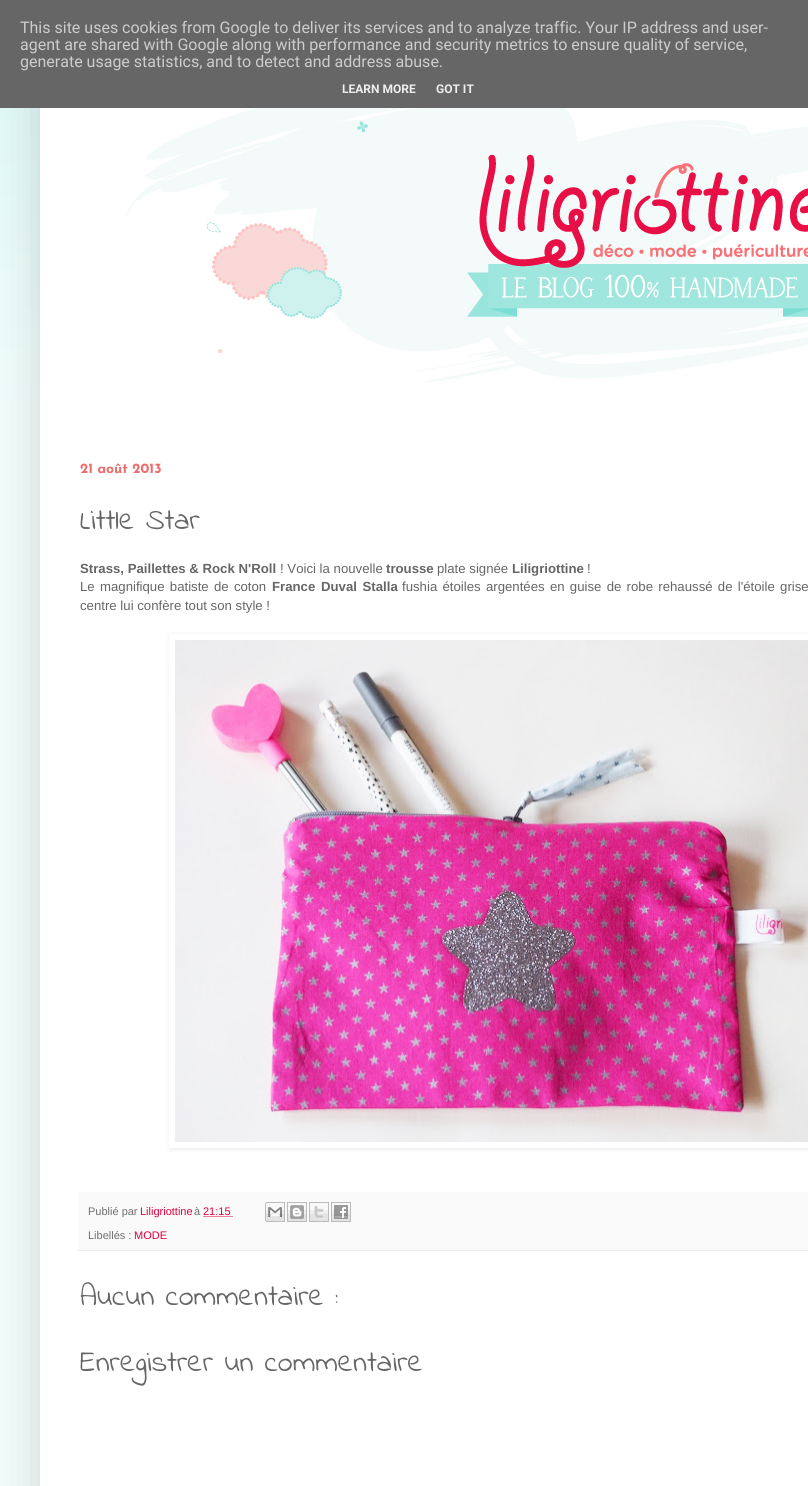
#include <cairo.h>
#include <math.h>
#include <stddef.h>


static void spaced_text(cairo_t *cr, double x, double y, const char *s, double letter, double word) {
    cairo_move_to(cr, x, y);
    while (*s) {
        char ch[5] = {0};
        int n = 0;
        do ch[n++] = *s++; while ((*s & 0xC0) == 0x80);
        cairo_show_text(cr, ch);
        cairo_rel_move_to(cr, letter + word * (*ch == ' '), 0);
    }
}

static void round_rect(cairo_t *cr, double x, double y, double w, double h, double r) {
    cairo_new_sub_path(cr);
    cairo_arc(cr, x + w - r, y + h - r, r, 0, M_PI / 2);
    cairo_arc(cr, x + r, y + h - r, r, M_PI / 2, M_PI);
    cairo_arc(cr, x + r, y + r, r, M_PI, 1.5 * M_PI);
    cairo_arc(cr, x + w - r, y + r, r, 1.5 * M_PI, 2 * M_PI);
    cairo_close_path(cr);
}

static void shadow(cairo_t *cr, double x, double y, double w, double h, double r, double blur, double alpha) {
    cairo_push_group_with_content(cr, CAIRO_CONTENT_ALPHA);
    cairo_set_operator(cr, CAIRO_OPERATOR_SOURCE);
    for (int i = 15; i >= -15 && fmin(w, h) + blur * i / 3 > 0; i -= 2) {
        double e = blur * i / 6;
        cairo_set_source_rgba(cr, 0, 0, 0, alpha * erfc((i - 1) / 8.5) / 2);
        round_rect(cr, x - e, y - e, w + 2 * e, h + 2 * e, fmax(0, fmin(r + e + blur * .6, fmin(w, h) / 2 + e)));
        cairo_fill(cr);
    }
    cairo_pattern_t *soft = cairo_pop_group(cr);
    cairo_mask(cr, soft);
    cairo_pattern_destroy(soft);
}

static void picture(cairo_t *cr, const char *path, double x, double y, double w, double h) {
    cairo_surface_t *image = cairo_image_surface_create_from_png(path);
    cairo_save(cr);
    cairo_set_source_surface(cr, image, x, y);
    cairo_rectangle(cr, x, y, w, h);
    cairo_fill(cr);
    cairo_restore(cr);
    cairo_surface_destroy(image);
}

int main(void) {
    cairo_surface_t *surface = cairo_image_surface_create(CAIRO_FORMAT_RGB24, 808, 1486);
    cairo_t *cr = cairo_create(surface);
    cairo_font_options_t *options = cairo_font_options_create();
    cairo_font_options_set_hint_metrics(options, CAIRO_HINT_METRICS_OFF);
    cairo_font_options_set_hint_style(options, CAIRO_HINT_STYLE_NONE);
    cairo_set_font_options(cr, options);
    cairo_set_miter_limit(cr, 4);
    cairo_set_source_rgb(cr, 0.945, 0.984, 0.98);
    cairo_paint(cr);
    cairo_set_source_rgb(cr, 0.847, 0.961, 0.949);
    cairo_rectangle(cr, 0, 108, 40, 292);
    cairo_fill(cr);
    picture(cr, "img1.png", 0, 108, 40, 292);
    cairo_set_source_rgb(cr, 0, 0, 0);
    shadow(cr, 40, 30, 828, 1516, 0, 20, 0.15);
    cairo_set_source_rgb(cr, 0.4, 0.4, 0.4);
    cairo_rectangle(cr, 0, 0, 808, 108);
    cairo_fill(cr);
    cairo_select_font_face(cr, "Roboto", CAIRO_FONT_SLANT_NORMAL, CAIRO_FONT_WEIGHT_NORMAL);
    cairo_set_font_size(cr, 16);
    cairo_set_source_rgb(cr, 0.8, 0.8, 0.8);
    cairo_move_to(cr, 20, 33);
    cairo_show_text(cr, "This site uses cookies from Google to deliver its services and to analyze traffic. Your IP address and user-");
    cairo_move_to(cr, 20, 50);
    cairo_show_text(cr, "agent are shared with Google along with performance and security metrics to ensure quality of service,");
    cairo_move_to(cr, 20, 67);
    cairo_show_text(cr, "generate usage statistics, and to detect and address abuse.");
    cairo_select_font_face(cr, "Roboto", CAIRO_FONT_SLANT_NORMAL, CAIRO_FONT_WEIGHT_BOLD);
    cairo_set_font_size(cr, 12);
    cairo_set_source_rgb(cr, 0.933, 0.933, 0.933);
    cairo_move_to(cr, 342, 93);
    cairo_show_text(cr, "LEARN MORE");
    cairo_move_to(cr, 436, 93);
    cairo_show_text(cr, "GOT IT");
    cairo_set_source_rgb(cr, 1, 1, 1);
    cairo_rectangle(cr, 40, 108, 768, 1378);
    cairo_fill(cr);
    picture(cr, "img2.png", 126, 108, 682, 275);
    cairo_select_font_face(cr, "Josefin Sans Thin", CAIRO_FONT_SLANT_NORMAL, CAIRO_FONT_WEIGHT_NORMAL);
    cairo_set_font_size(cr, 14);
    cairo_set_source_rgb(cr, 0.922, 0.427, 0.42);
    cairo_move_to(cr, 80, 473);
    cairo_show_text(cr, "21 août 2013");
    cairo_select_font_face(cr, "Indie Flower", CAIRO_FONT_SLANT_NORMAL, CAIRO_FONT_WEIGHT_NORMAL);
    cairo_set_font_size(cr, 30);
    cairo_set_source_rgb(cr, 0.4, 0.4, 0.4);
    cairo_move_to(cr, 80, 529);
    cairo_show_text(cr, "Little Star");
    cairo_select_font_face(cr, "Liberation Sans", CAIRO_FONT_SLANT_NORMAL, CAIRO_FONT_WEIGHT_BOLD);
    cairo_set_font_size(cr, 13.2);
    cairo_move_to(cr, 80, 573);
    cairo_show_text(cr, "Strass, Paillettes & Rock N'Roll");
    cairo_select_font_face(cr, "Liberation Sans", CAIRO_FONT_SLANT_NORMAL, CAIRO_FONT_WEIGHT_NORMAL);
    cairo_move_to(cr, 280, 573);
    cairo_show_text(cr, "! Voici la nouvelle");
    cairo_select_font_face(cr, "Liberation Sans", CAIRO_FONT_SLANT_NORMAL, CAIRO_FONT_WEIGHT_BOLD);
    cairo_move_to(cr, 386, 573);
    cairo_show_text(cr, "trousse");
    cairo_select_font_face(cr, "Liberation Sans", CAIRO_FONT_SLANT_NORMAL, CAIRO_FONT_WEIGHT_NORMAL);
    cairo_move_to(cr, 437, 573);
    cairo_show_text(cr, "plate signée");
    cairo_select_font_face(cr, "Liberation Sans", CAIRO_FONT_SLANT_NORMAL, CAIRO_FONT_WEIGHT_BOLD);
    cairo_move_to(cr, 512, 573);
    cairo_show_text(cr, "Liligriottine");
    cairo_select_font_face(cr, "Liberation Sans", CAIRO_FONT_SLANT_NORMAL, CAIRO_FONT_WEIGHT_NORMAL);
    cairo_move_to(cr, 587, 573);
    cairo_show_text(cr, "!");
    spaced_text(cr, 80, 591, "Le magnifique batiste de coton", 0, 1.6);
    cairo_select_font_face(cr, "Liberation Sans", CAIRO_FONT_SLANT_NORMAL, CAIRO_FONT_WEIGHT_BOLD);
    spaced_text(cr, 272, 591, "France Duval Stalla", 0, 2);
    cairo_select_font_face(cr, "Liberation Sans", CAIRO_FONT_SLANT_NORMAL, CAIRO_FONT_WEIGHT_NORMAL);
    spaced_text(cr, 402, 591, "fushia étoiles argentées en guise de robe rehaussé de l'étoile grise", 0, 1.6);
    cairo_move_to(cr, 80, 610);
    cairo_show_text(cr, "centre lui confère tout son style !");
    cairo_save(cr);
    cairo_set_fill_rule(cr, CAIRO_FILL_RULE_EVEN_ODD);
    cairo_new_path(cr);
    cairo_move_to(cr, 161, 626);
    cairo_line_to(cr, 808, 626);
    cairo_line_to(cr, 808, 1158);
    cairo_line_to(cr, 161, 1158);
    cairo_close_path(cr);
    cairo_move_to(cr, 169, 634);
    cairo_line_to(cr, 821, 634);
    cairo_line_to(cr, 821, 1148);
    cairo_line_to(cr, 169, 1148);
    cairo_close_path(cr);
    cairo_clip(cr);
    cairo_set_source_rgb(cr, 0, 0, 0);
    shadow(cr, 170, 635, 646, 514, 0, 2.5, 0.1);
    cairo_restore(cr);
    picture(cr, "img3.png", 175, 640, 633, 502);
    cairo_set_source_rgb(cr, 0.98, 0.98, 0.98);
    cairo_rectangle(cr, 78, 1192, 730, 58);
    cairo_fill(cr);
    cairo_set_source_rgb(cr, 0.937, 0.937, 0.937);
    cairo_rectangle(cr, 78, 1250, 730, 1);
    cairo_fill(cr);
    cairo_set_font_size(cr, 11);
    cairo_set_source_rgb(cr, 0.435, 0.435, 0.435);
    cairo_move_to(cr, 88, 1215);
    cairo_show_text(cr, "Publié par");
    cairo_set_source_rgb(cr, 0.886, 0, 0.239);
    cairo_move_to(cr, 140, 1215);
    cairo_show_text(cr, "Liligriottine");
    cairo_set_source_rgb(cr, 0.435, 0.435, 0.435);
    cairo_move_to(cr, 194, 1215);
    cairo_show_text(cr, "à");
    cairo_set_source_rgb(cr, 0.886, 0, 0.239);
    cairo_move_to(cr, 203, 1215);
    cairo_show_text(cr, "21:15");
    cairo_new_path(cr);
    cairo_move_to(cr, 203.5, 1216.5);
    cairo_line_to(cr, 233.5, 1216.5);
    cairo_set_line_width(cr, 1);
    cairo_set_dash(cr, (double[]){1, 1}, 2, 0);
    cairo_stroke(cr);
    picture(cr, "img4.png", 265, 1202, 20, 20);
    picture(cr, "img5.png", 287, 1202, 20, 20);
    picture(cr, "img6.png", 309, 1202, 20, 20);
    picture(cr, "img7.png", 331, 1202, 20, 20);
    cairo_set_source_rgb(cr, 0.435, 0.435, 0.435);
    cairo_move_to(cr, 88, 1239);
    cairo_show_text(cr, "Libellés :");
    cairo_set_source_rgb(cr, 0.886, 0, 0.239);
    cairo_move_to(cr, 134, 1239);
    cairo_show_text(cr, "MODE");
    cairo_select_font_face(cr, "Indie Flower", CAIRO_FONT_SLANT_NORMAL, CAIRO_FONT_WEIGHT_NORMAL);
    cairo_set_font_size(cr, 30);
    cairo_set_source_rgb(cr, 0.4, 0.4, 0.4);
    cairo_move_to(cr, 80, 1305);
    cairo_show_text(cr, "Aucun commentaire :");
    cairo_move_to(cr, 80, 1371);
    cairo_show_text(cr, "Enregistrer un commentaire");
    cairo_surface_write_to_png(surface, "page.png");
    cairo_font_options_destroy(options);
    cairo_destroy(cr);
    cairo_surface_destroy(surface);
    return 0;
}
